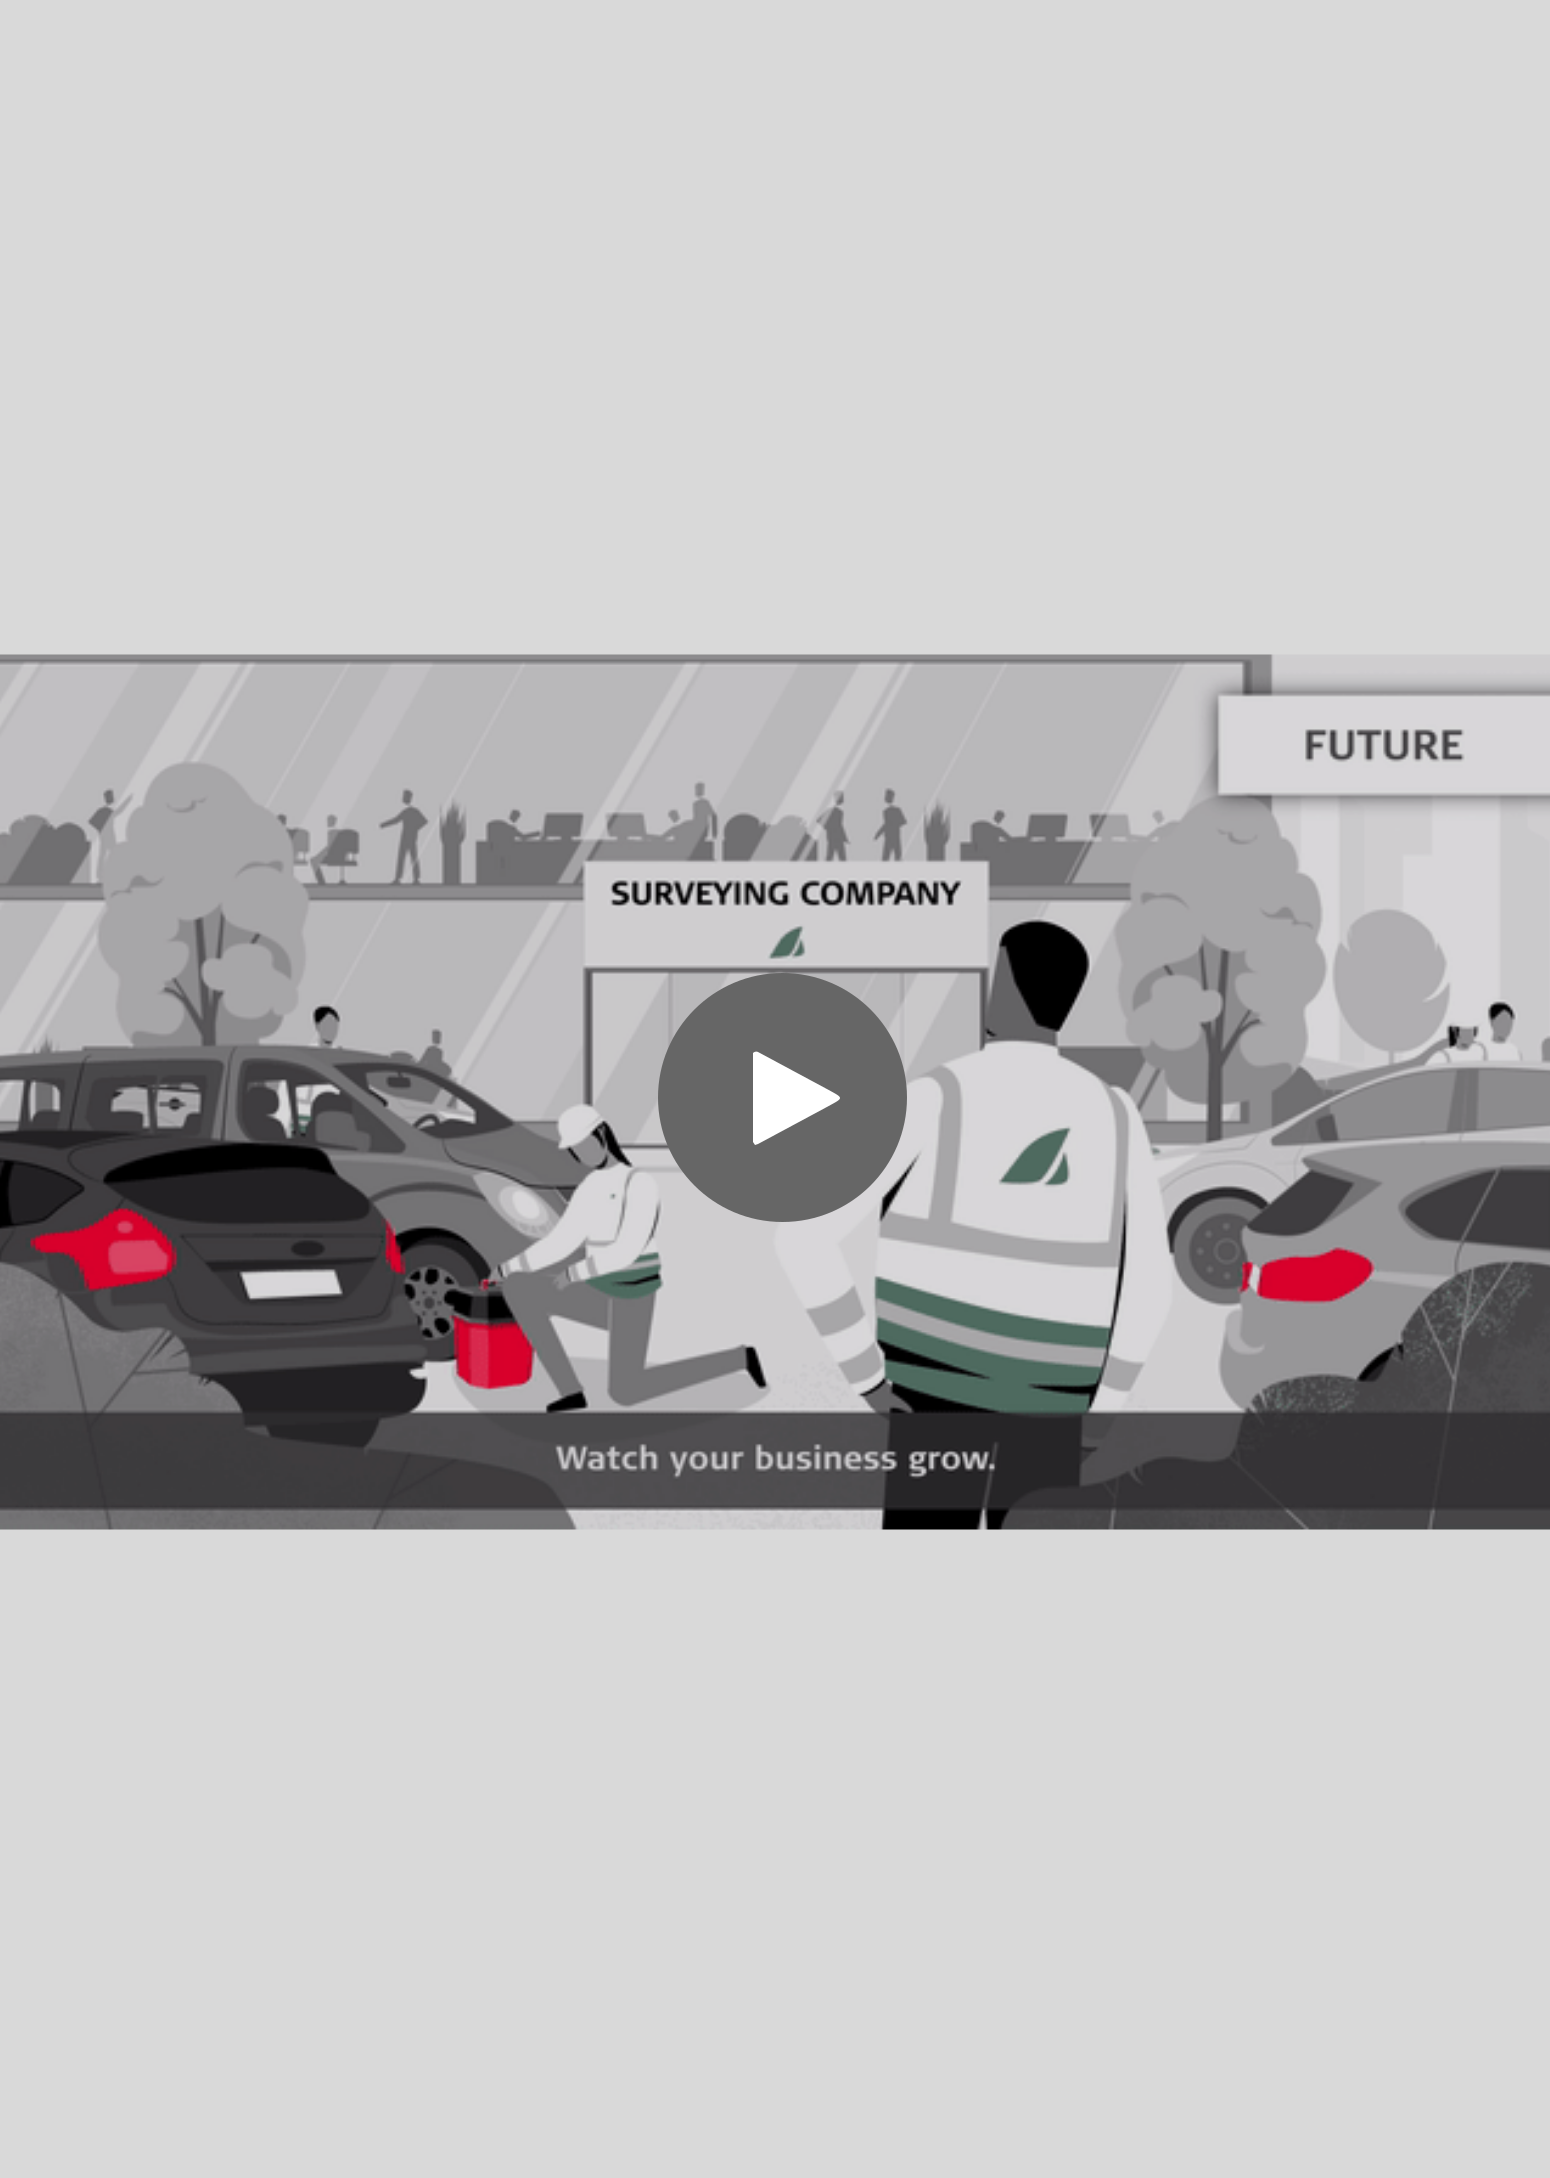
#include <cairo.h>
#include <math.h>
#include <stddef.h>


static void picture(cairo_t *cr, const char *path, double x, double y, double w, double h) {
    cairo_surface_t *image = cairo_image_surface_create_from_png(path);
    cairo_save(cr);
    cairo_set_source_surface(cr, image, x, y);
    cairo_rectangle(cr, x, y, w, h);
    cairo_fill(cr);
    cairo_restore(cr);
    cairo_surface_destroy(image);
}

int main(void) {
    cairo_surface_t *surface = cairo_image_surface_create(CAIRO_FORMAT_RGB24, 1550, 2178);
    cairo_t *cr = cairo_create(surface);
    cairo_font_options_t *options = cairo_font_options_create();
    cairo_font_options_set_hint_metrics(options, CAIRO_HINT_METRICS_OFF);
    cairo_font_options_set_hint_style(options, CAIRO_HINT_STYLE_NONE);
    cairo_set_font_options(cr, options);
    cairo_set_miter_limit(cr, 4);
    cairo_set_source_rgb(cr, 0.851, 0.851, 0.851);
    cairo_paint(cr);
    picture(cr, "img1.png", 0, 654, 1550, 876);
    cairo_set_source_rgb(cr, 0.4, 0.4, 0.4);
    cairo_arc(cr, 782.5, 1097.5, 124.5, 0, 2 * M_PI);
    cairo_fill(cr);
    cairo_set_source_rgb(cr, 1, 1, 1);
    cairo_new_path(cr);
    cairo_move_to(cr, 758, 1052);
    cairo_line_to(cr, 825, 1088);
    cairo_curve_to(cr, 845, 1099, 845, 1097, 825, 1108);
    cairo_line_to(cr, 758, 1144);
    cairo_line_to(cr, 755, 1145);
    cairo_line_to(cr, 753, 1142);
    cairo_line_to(cr, 753, 1053);
    cairo_curve_to(cr, 754, 1052, 756, 1051, 758, 1052);
    cairo_close_path(cr);
    cairo_fill(cr);
    cairo_surface_write_to_png(surface, "page.png");
    cairo_font_options_destroy(options);
    cairo_destroy(cr);
    cairo_surface_destroy(surface);
    return 0;
}
